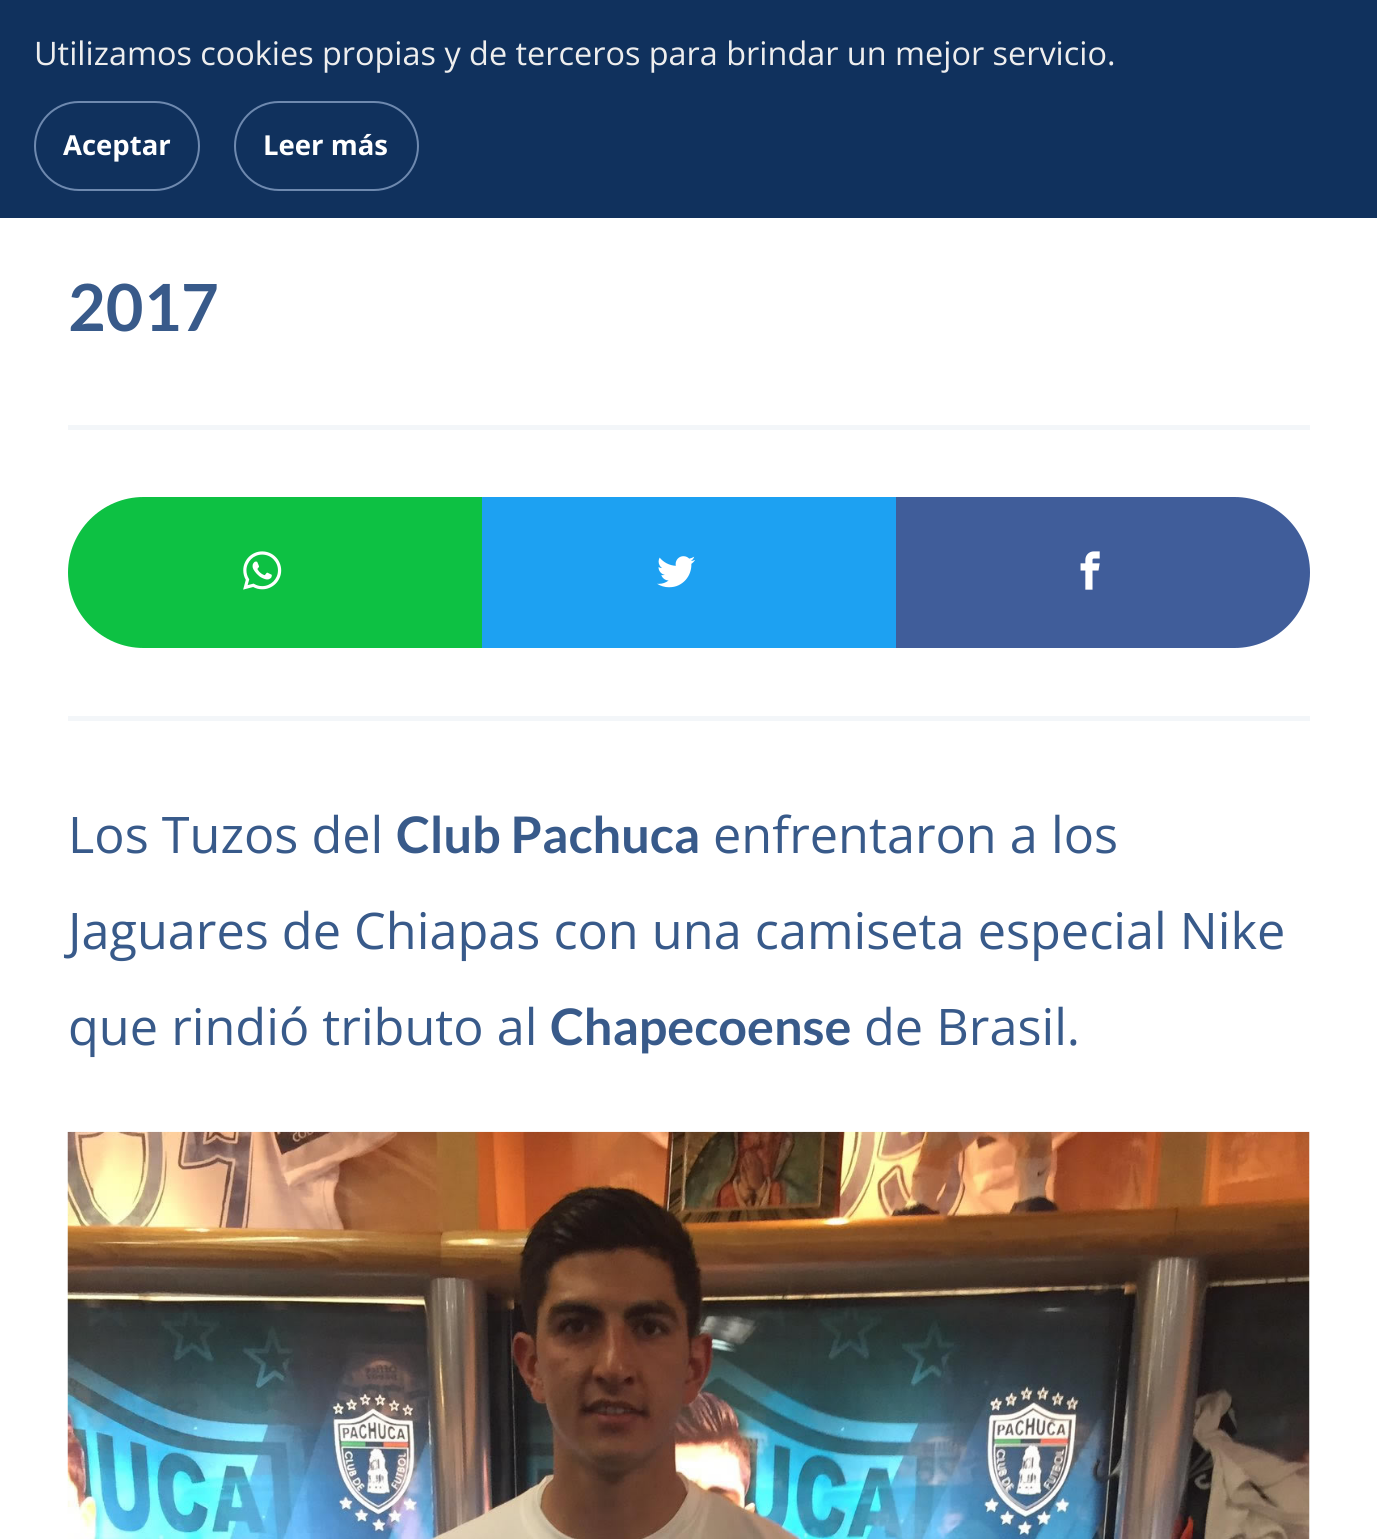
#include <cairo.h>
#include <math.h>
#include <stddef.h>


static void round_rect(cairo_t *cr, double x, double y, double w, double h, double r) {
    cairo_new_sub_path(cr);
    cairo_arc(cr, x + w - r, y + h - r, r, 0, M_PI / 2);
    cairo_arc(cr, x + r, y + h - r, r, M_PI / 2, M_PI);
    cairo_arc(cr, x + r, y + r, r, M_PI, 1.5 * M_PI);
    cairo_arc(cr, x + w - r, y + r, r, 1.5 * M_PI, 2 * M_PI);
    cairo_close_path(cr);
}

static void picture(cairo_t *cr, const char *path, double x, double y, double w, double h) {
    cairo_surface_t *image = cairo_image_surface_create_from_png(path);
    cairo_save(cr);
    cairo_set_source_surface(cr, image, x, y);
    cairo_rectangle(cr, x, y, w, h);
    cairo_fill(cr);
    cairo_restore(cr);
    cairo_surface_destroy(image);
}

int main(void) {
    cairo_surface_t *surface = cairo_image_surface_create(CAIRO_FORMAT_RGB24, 1377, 1539);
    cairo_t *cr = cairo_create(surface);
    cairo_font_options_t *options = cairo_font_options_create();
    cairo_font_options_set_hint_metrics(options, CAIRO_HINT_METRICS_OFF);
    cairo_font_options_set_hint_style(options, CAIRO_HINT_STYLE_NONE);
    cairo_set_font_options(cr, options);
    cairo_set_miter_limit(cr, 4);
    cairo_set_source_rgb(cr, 1, 1, 1);
    cairo_paint(cr);
    cairo_set_source_rgb(cr, 0.063, 0.192, 0.365);
    cairo_rectangle(cr, 0, 0, 1377, 218);
    cairo_fill(cr);
    cairo_select_font_face(cr, "Open Sans", CAIRO_FONT_SLANT_NORMAL, CAIRO_FONT_WEIGHT_NORMAL);
    cairo_set_font_size(cr, 32.4);
    cairo_set_source_rgb(cr, 0.933, 0.933, 0.933);
    cairo_move_to(cr, 34, 65);
    cairo_show_text(cr, "Utilizamos cookies propias y de terceros para brindar un mejor servicio.");
    round_rect(cr, 35, 102, 164, 88, 44);
    cairo_set_source_rgb(cr, 0.431, 0.537, 0.686);
    cairo_stroke(cr);
    cairo_select_font_face(cr, "Open Sans", CAIRO_FONT_SLANT_NORMAL, CAIRO_FONT_WEIGHT_BOLD);
    cairo_set_font_size(cr, 27.5);
    cairo_set_source_rgb(cr, 1, 1, 1);
    cairo_move_to(cr, 63, 155);
    cairo_show_text(cr, "Aceptar");
    round_rect(cr, 235, 102, 183, 88, 44);
    cairo_set_source_rgb(cr, 0.431, 0.537, 0.686);
    cairo_stroke(cr);
    cairo_set_source_rgb(cr, 1, 1, 1);
    cairo_move_to(cr, 263, 155);
    cairo_show_text(cr, "Leer más");
    cairo_select_font_face(cr, "Lato", CAIRO_FONT_SLANT_NORMAL, CAIRO_FONT_WEIGHT_BOLD);
    cairo_set_font_size(cr, 65);
    cairo_set_source_rgb(cr, 0.22, 0.353, 0.541);
    cairo_move_to(cr, 68, 331);
    cairo_show_text(cr, "2017");
    cairo_set_source_rgb(cr, 0.953, 0.961, 0.976);
    cairo_rectangle(cr, 68, 425, 1242, 5);
    cairo_fill(cr);
    cairo_rectangle(cr, 68, 716, 1242, 5);
    cairo_fill(cr);
    cairo_set_source_rgb(cr, 0.051, 0.757, 0.263);
    cairo_new_path(cr);
    cairo_move_to(cr, 143.5, 497);
    cairo_line_to(cr, 482, 497);
    cairo_line_to(cr, 482, 648);
    cairo_line_to(cr, 143.5, 648);
    cairo_curve_to(cr, 102, 648, 68, 614, 68, 572.5);
    cairo_curve_to(cr, 68, 531, 102, 497, 143.5, 497);
    cairo_close_path(cr);
    cairo_fill(cr);
    picture(cr, "img1.png", 243, 551, 39, 39);
    cairo_set_source_rgb(cr, 0.114, 0.631, 0.949);
    cairo_rectangle(cr, 482, 497, 414, 151);
    cairo_fill(cr);
    picture(cr, "img2.png", 657, 556, 38, 32);
    cairo_set_source_rgb(cr, 0.251, 0.365, 0.604);
    cairo_new_path(cr);
    cairo_move_to(cr, 896, 497);
    cairo_line_to(cr, 1234.5, 497);
    cairo_curve_to(cr, 1276, 497, 1310, 531, 1310, 572.5);
    cairo_curve_to(cr, 1310, 614, 1276, 648, 1234.5, 648);
    cairo_line_to(cr, 896, 648);
    cairo_close_path(cr);
    cairo_fill(cr);
    picture(cr, "img3.png", 1080, 551, 20, 39);
    cairo_select_font_face(cr, "Open Sans", CAIRO_FONT_SLANT_NORMAL, CAIRO_FONT_WEIGHT_NORMAL);
    cairo_set_font_size(cr, 50.4);
    cairo_set_source_rgb(cr, 0.22, 0.353, 0.541);
    cairo_move_to(cr, 68, 853);
    cairo_show_text(cr, "Los Tuzos del");
    cairo_select_font_face(cr, "Lato", CAIRO_FONT_SLANT_NORMAL, CAIRO_FONT_WEIGHT_BOLD);
    cairo_move_to(cr, 396, 853);
    cairo_show_text(cr, "Club Pachuca");
    cairo_select_font_face(cr, "Open Sans", CAIRO_FONT_SLANT_NORMAL, CAIRO_FONT_WEIGHT_NORMAL);
    cairo_move_to(cr, 713, 853);
    cairo_show_text(cr, "enfrentaron a los");
    cairo_move_to(cr, 68, 949);
    cairo_show_text(cr, "Jaguares de Chiapas con una camiseta especial Nike");
    cairo_move_to(cr, 68, 1045);
    cairo_show_text(cr, "que rindió tributo al");
    cairo_select_font_face(cr, "Lato", CAIRO_FONT_SLANT_NORMAL, CAIRO_FONT_WEIGHT_BOLD);
    cairo_move_to(cr, 550, 1045);
    cairo_show_text(cr, "Chapecoense");
    cairo_select_font_face(cr, "Open Sans", CAIRO_FONT_SLANT_NORMAL, CAIRO_FONT_WEIGHT_NORMAL);
    cairo_move_to(cr, 864, 1045);
    cairo_show_text(cr, "de Brasil.");
    picture(cr, "img4.png", 67, 1131, 1243, 408);
    cairo_surface_write_to_png(surface, "page.png");
    cairo_font_options_destroy(options);
    cairo_destroy(cr);
    cairo_surface_destroy(surface);
    return 0;
}
